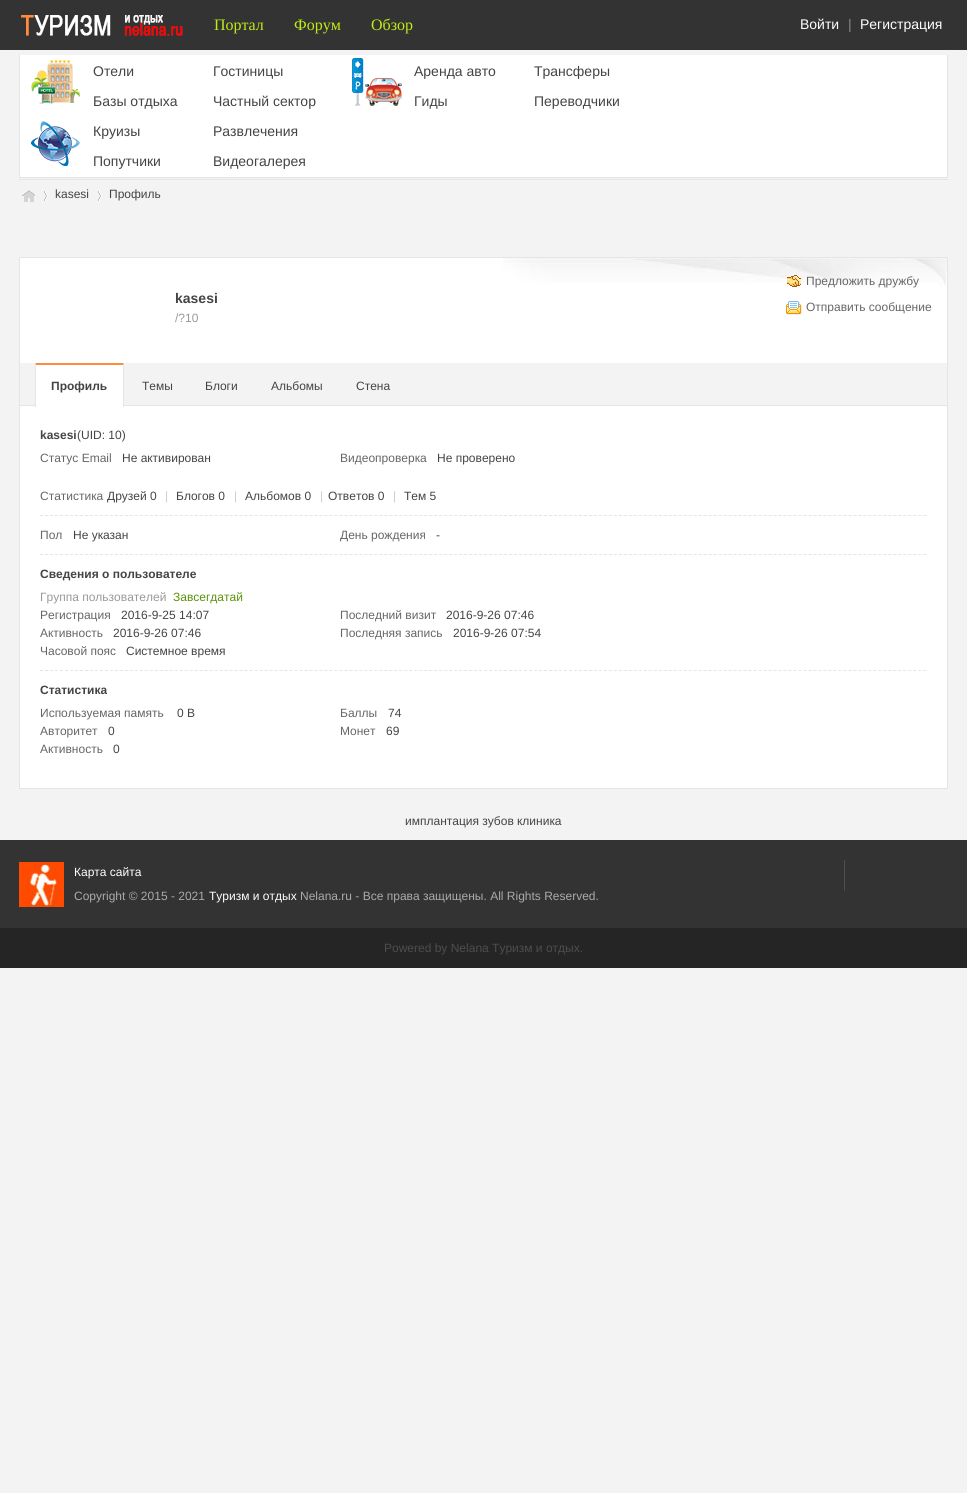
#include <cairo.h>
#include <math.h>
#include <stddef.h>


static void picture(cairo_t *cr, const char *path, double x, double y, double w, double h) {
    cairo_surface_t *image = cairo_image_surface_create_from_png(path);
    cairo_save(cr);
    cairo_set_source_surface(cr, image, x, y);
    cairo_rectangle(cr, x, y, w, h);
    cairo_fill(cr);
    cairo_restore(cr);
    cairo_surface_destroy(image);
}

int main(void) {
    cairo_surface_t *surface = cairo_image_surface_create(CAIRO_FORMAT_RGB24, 967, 1493);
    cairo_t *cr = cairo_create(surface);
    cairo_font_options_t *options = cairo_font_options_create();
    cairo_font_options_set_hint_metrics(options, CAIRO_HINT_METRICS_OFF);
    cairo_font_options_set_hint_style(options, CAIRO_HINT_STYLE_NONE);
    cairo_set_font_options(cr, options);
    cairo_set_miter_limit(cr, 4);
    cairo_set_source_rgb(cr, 0.953, 0.953, 0.953);
    cairo_paint(cr);
    cairo_set_source_rgb(cr, 0.2, 0.2, 0.2);
    cairo_rectangle(cr, 0, 0, 967, 50);
    cairo_fill(cr);
    picture(cr, "img1.png", 21, 15, 162, 21);
    cairo_select_font_face(cr, "Liberation Serif", CAIRO_FONT_SLANT_NORMAL, CAIRO_FONT_WEIGHT_NORMAL);
    cairo_set_font_size(cr, 16);
    cairo_set_source_rgb(cr, 0.753, 0.925, 0.082);
    cairo_move_to(cr, 214, 30);
    cairo_show_text(cr, "Портал");
    cairo_move_to(cr, 294, 30);
    cairo_show_text(cr, "Форум");
    cairo_move_to(cr, 371, 30);
    cairo_show_text(cr, "Обзор");
    cairo_select_font_face(cr, "Liberation Sans", CAIRO_FONT_SLANT_NORMAL, CAIRO_FONT_WEIGHT_NORMAL);
    cairo_set_font_size(cr, 14);
    cairo_set_source_rgb(cr, 1, 1, 1);
    cairo_move_to(cr, 800, 29);
    cairo_show_text(cr, "Войти");
    cairo_set_source_rgb(cr, 0.533, 0.533, 0.533);
    cairo_move_to(cr, 848, 29);
    cairo_show_text(cr, "|");
    cairo_set_source_rgb(cr, 1, 1, 1);
    cairo_move_to(cr, 860, 29);
    cairo_show_text(cr, "Регистрация");
    cairo_rectangle(cr, 20, 55, 927, 122);
    cairo_fill(cr);
    cairo_set_source_rgb(cr, 0.898, 0.898, 0.898);
    cairo_rectangle(cr, 947, 55, 1, 123);
    cairo_fill(cr);
    cairo_rectangle(cr, 19, 177, 929, 1);
    cairo_fill(cr);
    cairo_rectangle(cr, 19, 55, 1, 123);
    cairo_fill(cr);
    picture(cr, "img2.png", 31, 60, 49, 44);
    cairo_set_source_rgb(cr, 0.267, 0.267, 0.267);
    cairo_move_to(cr, 93, 76);
    cairo_show_text(cr, "Отели");
    cairo_move_to(cr, 213, 76);
    cairo_show_text(cr, "Гостиницы");
    cairo_move_to(cr, 93, 106);
    cairo_show_text(cr, "Базы отдыха");
    cairo_move_to(cr, 213, 106);
    cairo_show_text(cr, "Частный сектор");
    picture(cr, "img3.png", 352, 58, 50, 48);
    cairo_move_to(cr, 414, 76);
    cairo_show_text(cr, "Aренда авто");
    cairo_move_to(cr, 534, 76);
    cairo_show_text(cr, "Трансферы");
    cairo_move_to(cr, 414, 106);
    cairo_show_text(cr, "Гиды");
    cairo_move_to(cr, 534, 106);
    cairo_show_text(cr, "Переводчики");
    picture(cr, "img4.png", 31, 121, 49, 45);
    cairo_move_to(cr, 93, 136);
    cairo_show_text(cr, "Круизы");
    cairo_move_to(cr, 213, 136);
    cairo_show_text(cr, "Развлечения");
    cairo_move_to(cr, 93, 166);
    cairo_show_text(cr, "Попутчики");
    cairo_move_to(cr, 213, 166);
    cairo_show_text(cr, "Видеогалерея");
    cairo_set_source_rgb(cr, 0.898, 0.898, 0.898);
    cairo_rectangle(cr, 19, 179, 929, 1);
    cairo_fill(cr);
    picture(cr, "img5.png", 21, 190, 14, 12);
    picture(cr, "img6.png", 44, 191, 4, 10);
    cairo_set_font_size(cr, 12);
    cairo_set_source_rgb(cr, 0.267, 0.267, 0.267);
    cairo_move_to(cr, 55, 198);
    cairo_show_text(cr, "kasesi");
    picture(cr, "img6.png", 98, 191, 4, 10);
    cairo_move_to(cr, 109, 198);
    cairo_show_text(cr, "Профиль");
    cairo_set_source_rgb(cr, 1, 1, 1);
    cairo_rectangle(cr, 20, 258, 927, 105);
    cairo_fill(cr);
    picture(cr, "img7.png", 503, 258, 444, 29);
    cairo_set_source_rgb(cr, 0.898, 0.898, 0.898);
    cairo_rectangle(cr, 19, 257, 929, 1);
    cairo_fill(cr);
    cairo_rectangle(cr, 947, 257, 1, 532);
    cairo_fill(cr);
    cairo_rectangle(cr, 19, 257, 1, 149);
    cairo_fill(cr);
    cairo_select_font_face(cr, "Liberation Sans", CAIRO_FONT_SLANT_NORMAL, CAIRO_FONT_WEIGHT_BOLD);
    cairo_set_font_size(cr, 14);
    cairo_set_source_rgb(cr, 0.267, 0.267, 0.267);
    cairo_move_to(cr, 175, 303);
    cairo_show_text(cr, "kasesi");
    cairo_select_font_face(cr, "Liberation Sans", CAIRO_FONT_SLANT_NORMAL, CAIRO_FONT_WEIGHT_NORMAL);
    cairo_set_font_size(cr, 12);
    cairo_set_source_rgb(cr, 0.6, 0.6, 0.6);
    cairo_move_to(cr, 175, 322);
    cairo_show_text(cr, "/?10");
    picture(cr, "img8.png", 787, 275, 14, 12);
    cairo_set_source_rgb(cr, 0.4, 0.4, 0.4);
    cairo_move_to(cr, 806, 285);
    cairo_show_text(cr, "Предложить дружбу");
    picture(cr, "img9.png", 786, 301, 16, 14);
    cairo_move_to(cr, 806, 311);
    cairo_show_text(cr, "Отправить сообщение");
    cairo_set_source_rgb(cr, 0.898, 0.898, 0.898);
    cairo_rectangle(cr, 20, 405, 927, 1);
    cairo_fill(cr);
    cairo_set_source_rgb(cr, 1, 1, 1);
    cairo_rectangle(cr, 35, 363, 89, 43);
    cairo_fill(cr);
    cairo_set_source_rgb(cr, 1, 0.545, 0.239);
    cairo_new_path(cr);
    cairo_move_to(cr, 35, 363);
    cairo_line_to(cr, 124, 363);
    cairo_line_to(cr, 123, 365);
    cairo_line_to(cr, 36, 365);
    cairo_close_path(cr);
    cairo_fill(cr);
    cairo_set_source_rgb(cr, 1, 1, 1);
    cairo_rectangle(cr, 20, 406, 927, 382);
    cairo_fill(cr);
    cairo_set_source_rgb(cr, 0.898, 0.898, 0.898);
    cairo_new_path(cr);
    cairo_move_to(cr, 124, 363);
    cairo_line_to(cr, 124, 407);
    cairo_line_to(cr, 123, 407);
    cairo_line_to(cr, 123, 365);
    cairo_close_path(cr);
    cairo_fill(cr);
    cairo_new_path(cr);
    cairo_move_to(cr, 35, 407);
    cairo_line_to(cr, 35, 363);
    cairo_line_to(cr, 36, 365);
    cairo_line_to(cr, 36, 407);
    cairo_close_path(cr);
    cairo_fill(cr);
    cairo_select_font_face(cr, "Liberation Sans", CAIRO_FONT_SLANT_NORMAL, CAIRO_FONT_WEIGHT_BOLD);
    cairo_set_source_rgb(cr, 0.267, 0.267, 0.267);
    cairo_move_to(cr, 51, 390);
    cairo_show_text(cr, "Профиль");
    cairo_select_font_face(cr, "Liberation Sans", CAIRO_FONT_SLANT_NORMAL, CAIRO_FONT_WEIGHT_NORMAL);
    cairo_move_to(cr, 142, 390);
    cairo_show_text(cr, "Темы");
    cairo_move_to(cr, 205, 390);
    cairo_show_text(cr, "Блоги");
    cairo_move_to(cr, 271, 390);
    cairo_show_text(cr, "Альбомы");
    cairo_move_to(cr, 356, 390);
    cairo_show_text(cr, "Стена");
    cairo_set_source_rgb(cr, 0.898, 0.898, 0.898);
    cairo_rectangle(cr, 19, 788, 929, 1);
    cairo_fill(cr);
    cairo_rectangle(cr, 19, 406, 1, 383);
    cairo_fill(cr);
    cairo_new_path(cr);
    cairo_move_to(cr, 40, 554.5);
    cairo_line_to(cr, 927, 554.5);
    cairo_set_line_width(cr, 1);
    cairo_set_dash(cr, (double[]){3, 1.99}, 2, 0);
    cairo_stroke(cr);
    cairo_select_font_face(cr, "Liberation Sans", CAIRO_FONT_SLANT_NORMAL, CAIRO_FONT_WEIGHT_BOLD);
    cairo_set_source_rgb(cr, 0.267, 0.267, 0.267);
    cairo_move_to(cr, 40, 439);
    cairo_show_text(cr, "kasesi");
    cairo_select_font_face(cr, "Liberation Sans", CAIRO_FONT_SLANT_NORMAL, CAIRO_FONT_WEIGHT_NORMAL);
    cairo_move_to(cr, 77, 439);
    cairo_show_text(cr, "(UID: 10)");
    cairo_set_source_rgb(cr, 0.4, 0.4, 0.4);
    cairo_move_to(cr, 40, 462);
    cairo_show_text(cr, "Статус Email");
    cairo_set_source_rgb(cr, 0.267, 0.267, 0.267);
    cairo_move_to(cr, 122, 462);
    cairo_show_text(cr, "Не активирован");
    cairo_set_source_rgb(cr, 0.4, 0.4, 0.4);
    cairo_move_to(cr, 340, 462);
    cairo_show_text(cr, "Видеопроверка");
    cairo_set_source_rgb(cr, 0.267, 0.267, 0.267);
    cairo_move_to(cr, 437, 462);
    cairo_show_text(cr, "Не проверено");
    cairo_new_path(cr);
    cairo_move_to(cr, 40, 515.5);
    cairo_line_to(cr, 927, 515.5);
    cairo_set_source_rgb(cr, 0.898, 0.898, 0.898);
    cairo_stroke(cr);
    cairo_set_source_rgb(cr, 0.4, 0.4, 0.4);
    cairo_move_to(cr, 40, 500);
    cairo_show_text(cr, "Статистика");
    cairo_set_source_rgb(cr, 0.267, 0.267, 0.267);
    cairo_move_to(cr, 107, 500);
    cairo_show_text(cr, "Друзей 0");
    cairo_set_source_rgb(cr, 0.8, 0.8, 0.8);
    cairo_move_to(cr, 165, 500);
    cairo_show_text(cr, "|");
    cairo_set_source_rgb(cr, 0.267, 0.267, 0.267);
    cairo_move_to(cr, 176, 500);
    cairo_show_text(cr, "Блогов 0");
    cairo_set_source_rgb(cr, 0.8, 0.8, 0.8);
    cairo_move_to(cr, 234, 500);
    cairo_show_text(cr, "|");
    cairo_set_source_rgb(cr, 0.267, 0.267, 0.267);
    cairo_move_to(cr, 245, 500);
    cairo_show_text(cr, "Альбомов 0");
    cairo_set_source_rgb(cr, 0.8, 0.8, 0.8);
    cairo_move_to(cr, 320, 500);
    cairo_show_text(cr, "|");
    cairo_set_source_rgb(cr, 0.267, 0.267, 0.267);
    cairo_move_to(cr, 328, 500);
    cairo_show_text(cr, "Ответов 0");
    cairo_set_source_rgb(cr, 0.8, 0.8, 0.8);
    cairo_move_to(cr, 393, 500);
    cairo_show_text(cr, "|");
    cairo_set_source_rgb(cr, 0.267, 0.267, 0.267);
    cairo_move_to(cr, 404, 500);
    cairo_show_text(cr, "Тем 5");
    cairo_set_source_rgb(cr, 0.4, 0.4, 0.4);
    cairo_move_to(cr, 40, 539);
    cairo_show_text(cr, "Пол");
    cairo_set_source_rgb(cr, 0.267, 0.267, 0.267);
    cairo_move_to(cr, 73, 539);
    cairo_show_text(cr, "Не указан");
    cairo_set_source_rgb(cr, 0.4, 0.4, 0.4);
    cairo_move_to(cr, 340, 539);
    cairo_show_text(cr, "День рождения");
    cairo_set_source_rgb(cr, 0.267, 0.267, 0.267);
    cairo_move_to(cr, 436, 539);
    cairo_show_text(cr, "-");
    cairo_new_path(cr);
    cairo_move_to(cr, 40, 670.5);
    cairo_line_to(cr, 927, 670.5);
    cairo_set_source_rgb(cr, 0.898, 0.898, 0.898);
    cairo_stroke(cr);
    cairo_select_font_face(cr, "Liberation Sans", CAIRO_FONT_SLANT_NORMAL, CAIRO_FONT_WEIGHT_BOLD);
    cairo_set_source_rgb(cr, 0.267, 0.267, 0.267);
    cairo_move_to(cr, 40, 578);
    cairo_show_text(cr, "Сведения о пользователе");
    cairo_select_font_face(cr, "Liberation Sans", CAIRO_FONT_SLANT_NORMAL, CAIRO_FONT_WEIGHT_NORMAL);
    cairo_set_source_rgb(cr, 0.6, 0.6, 0.6);
    cairo_move_to(cr, 40, 601);
    cairo_show_text(cr, "Группа пользователей");
    cairo_set_source_rgb(cr, 0.357, 0.573, 0.039);
    cairo_move_to(cr, 173, 601);
    cairo_show_text(cr, "Завсегдатай");
    cairo_set_source_rgb(cr, 0.4, 0.4, 0.4);
    cairo_move_to(cr, 40, 619);
    cairo_show_text(cr, "Регистрация");
    cairo_set_source_rgb(cr, 0.267, 0.267, 0.267);
    cairo_move_to(cr, 121, 619);
    cairo_show_text(cr, "2016-9-25 14:07");
    cairo_set_source_rgb(cr, 0.4, 0.4, 0.4);
    cairo_move_to(cr, 340, 619);
    cairo_show_text(cr, "Последний визит");
    cairo_set_source_rgb(cr, 0.267, 0.267, 0.267);
    cairo_move_to(cr, 446, 619);
    cairo_show_text(cr, "2016-9-26 07:46");
    cairo_set_source_rgb(cr, 0.4, 0.4, 0.4);
    cairo_move_to(cr, 40, 637);
    cairo_show_text(cr, "Активность");
    cairo_set_source_rgb(cr, 0.267, 0.267, 0.267);
    cairo_move_to(cr, 113, 637);
    cairo_show_text(cr, "2016-9-26 07:46");
    cairo_set_source_rgb(cr, 0.4, 0.4, 0.4);
    cairo_move_to(cr, 340, 637);
    cairo_show_text(cr, "Последняя запись");
    cairo_set_source_rgb(cr, 0.267, 0.267, 0.267);
    cairo_move_to(cr, 453, 637);
    cairo_show_text(cr, "2016-9-26 07:54");
    cairo_set_source_rgb(cr, 0.4, 0.4, 0.4);
    cairo_move_to(cr, 40, 655);
    cairo_show_text(cr, "Часовой пояс");
    cairo_set_source_rgb(cr, 0.267, 0.267, 0.267);
    cairo_move_to(cr, 126, 655);
    cairo_show_text(cr, "Системное время");
    cairo_select_font_face(cr, "Liberation Sans", CAIRO_FONT_SLANT_NORMAL, CAIRO_FONT_WEIGHT_BOLD);
    cairo_move_to(cr, 40, 694);
    cairo_show_text(cr, "Статистика");
    cairo_select_font_face(cr, "Liberation Sans", CAIRO_FONT_SLANT_NORMAL, CAIRO_FONT_WEIGHT_NORMAL);
    cairo_set_source_rgb(cr, 0.4, 0.4, 0.4);
    cairo_move_to(cr, 40, 717);
    cairo_show_text(cr, "Используемая память");
    cairo_set_source_rgb(cr, 0.267, 0.267, 0.267);
    cairo_move_to(cr, 177, 717);
    cairo_show_text(cr, "0 B");
    cairo_set_source_rgb(cr, 0.4, 0.4, 0.4);
    cairo_move_to(cr, 340, 717);
    cairo_show_text(cr, "Баллы");
    cairo_set_source_rgb(cr, 0.267, 0.267, 0.267);
    cairo_move_to(cr, 388, 717);
    cairo_show_text(cr, "74");
    cairo_set_source_rgb(cr, 0.4, 0.4, 0.4);
    cairo_move_to(cr, 40, 735);
    cairo_show_text(cr, "Авторитет");
    cairo_set_source_rgb(cr, 0.267, 0.267, 0.267);
    cairo_move_to(cr, 108, 735);
    cairo_show_text(cr, "0");
    cairo_set_source_rgb(cr, 0.4, 0.4, 0.4);
    cairo_move_to(cr, 340, 735);
    cairo_show_text(cr, "Монет");
    cairo_set_source_rgb(cr, 0.267, 0.267, 0.267);
    cairo_move_to(cr, 386, 735);
    cairo_show_text(cr, "69");
    cairo_set_source_rgb(cr, 0.4, 0.4, 0.4);
    cairo_move_to(cr, 40, 753);
    cairo_show_text(cr, "Активность");
    cairo_set_source_rgb(cr, 0.267, 0.267, 0.267);
    cairo_move_to(cr, 113, 753);
    cairo_show_text(cr, "0");
    cairo_move_to(cr, 405, 825);
    cairo_show_text(cr, "имплантация зубов клиника");
    cairo_set_source_rgb(cr, 0.2, 0.2, 0.2);
    cairo_rectangle(cr, 0, 840, 967, 88);
    cairo_fill(cr);
    picture(cr, "img10.png", 19, 862, 45, 45);
    cairo_set_source_rgb(cr, 1, 1, 1);
    cairo_move_to(cr, 74, 876);
    cairo_show_text(cr, "Карта сайта");
    cairo_set_source_rgb(cr, 0.667, 0.667, 0.667);
    cairo_move_to(cr, 74, 900);
    cairo_show_text(cr, "Copyright © 2015 - 2021");
    cairo_set_source_rgb(cr, 1, 1, 1);
    cairo_move_to(cr, 209, 900);
    cairo_show_text(cr, "Туризм и отдых");
    cairo_set_source_rgb(cr, 0.667, 0.667, 0.667);
    cairo_move_to(cr, 300, 900);
    cairo_show_text(cr, "Nelana.ru - Все права защищены. All Rights Reserved.");
    cairo_set_source_rgb(cr, 0.306, 0.306, 0.306);
    cairo_rectangle(cr, 844, 860, 1, 31);
    cairo_fill(cr);
    cairo_set_source_rgb(cr, 0.145, 0.145, 0.145);
    cairo_rectangle(cr, 0, 928, 967, 40);
    cairo_fill(cr);
    cairo_set_source_rgb(cr, 0.302, 0.302, 0.302);
    cairo_move_to(cr, 384, 952);
    cairo_show_text(cr, "Powered by Nelana Туризм и отдых.");
    cairo_surface_write_to_png(surface, "page.png");
    cairo_font_options_destroy(options);
    cairo_destroy(cr);
    cairo_surface_destroy(surface);
    return 0;
}
